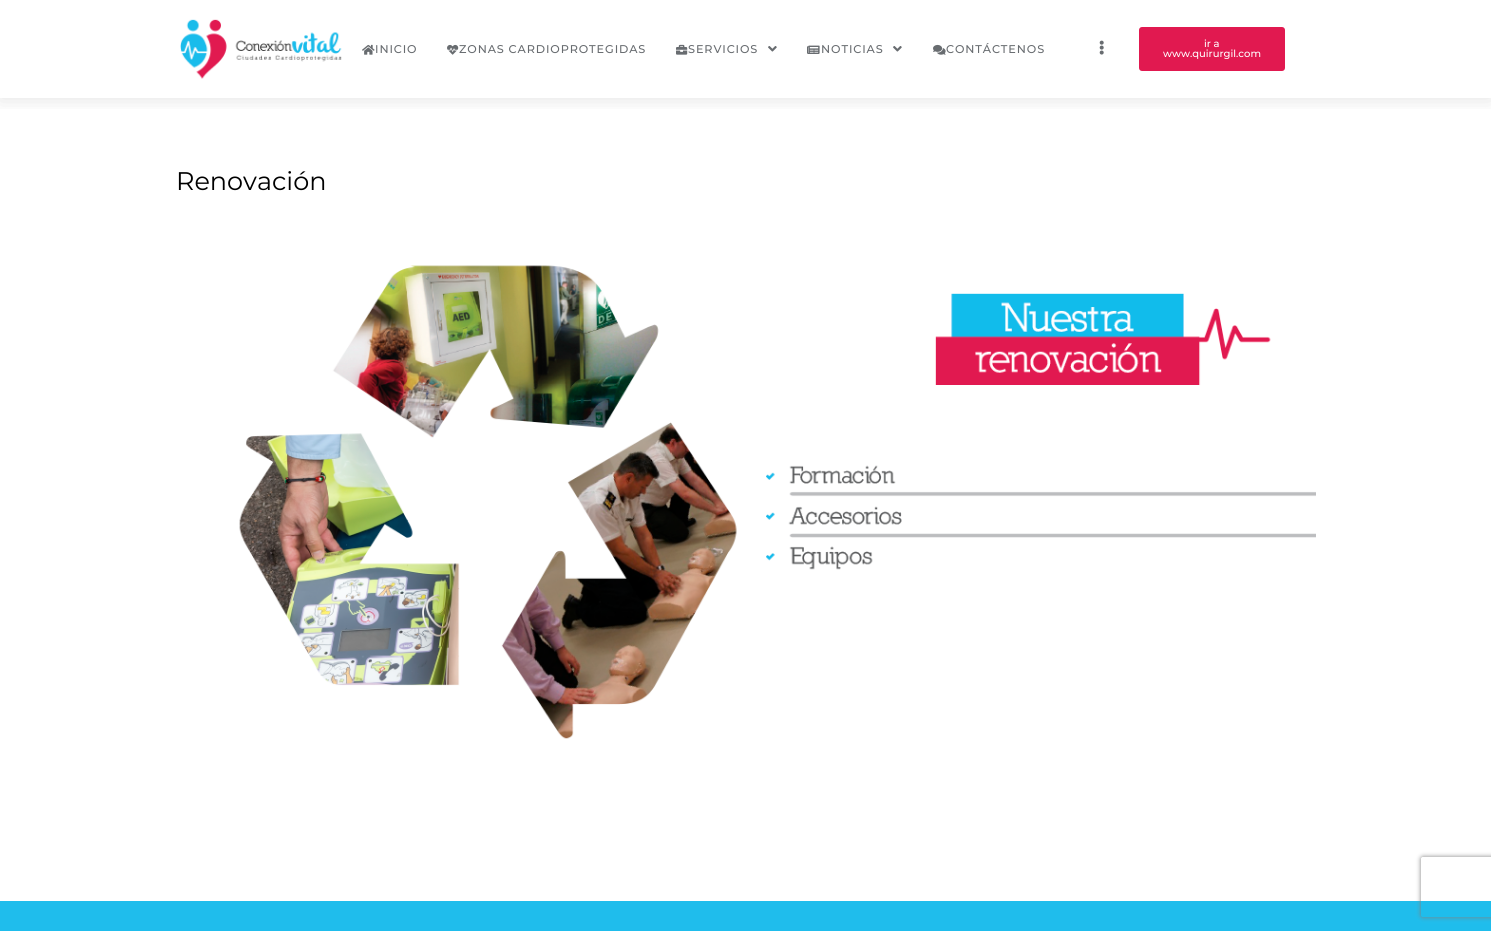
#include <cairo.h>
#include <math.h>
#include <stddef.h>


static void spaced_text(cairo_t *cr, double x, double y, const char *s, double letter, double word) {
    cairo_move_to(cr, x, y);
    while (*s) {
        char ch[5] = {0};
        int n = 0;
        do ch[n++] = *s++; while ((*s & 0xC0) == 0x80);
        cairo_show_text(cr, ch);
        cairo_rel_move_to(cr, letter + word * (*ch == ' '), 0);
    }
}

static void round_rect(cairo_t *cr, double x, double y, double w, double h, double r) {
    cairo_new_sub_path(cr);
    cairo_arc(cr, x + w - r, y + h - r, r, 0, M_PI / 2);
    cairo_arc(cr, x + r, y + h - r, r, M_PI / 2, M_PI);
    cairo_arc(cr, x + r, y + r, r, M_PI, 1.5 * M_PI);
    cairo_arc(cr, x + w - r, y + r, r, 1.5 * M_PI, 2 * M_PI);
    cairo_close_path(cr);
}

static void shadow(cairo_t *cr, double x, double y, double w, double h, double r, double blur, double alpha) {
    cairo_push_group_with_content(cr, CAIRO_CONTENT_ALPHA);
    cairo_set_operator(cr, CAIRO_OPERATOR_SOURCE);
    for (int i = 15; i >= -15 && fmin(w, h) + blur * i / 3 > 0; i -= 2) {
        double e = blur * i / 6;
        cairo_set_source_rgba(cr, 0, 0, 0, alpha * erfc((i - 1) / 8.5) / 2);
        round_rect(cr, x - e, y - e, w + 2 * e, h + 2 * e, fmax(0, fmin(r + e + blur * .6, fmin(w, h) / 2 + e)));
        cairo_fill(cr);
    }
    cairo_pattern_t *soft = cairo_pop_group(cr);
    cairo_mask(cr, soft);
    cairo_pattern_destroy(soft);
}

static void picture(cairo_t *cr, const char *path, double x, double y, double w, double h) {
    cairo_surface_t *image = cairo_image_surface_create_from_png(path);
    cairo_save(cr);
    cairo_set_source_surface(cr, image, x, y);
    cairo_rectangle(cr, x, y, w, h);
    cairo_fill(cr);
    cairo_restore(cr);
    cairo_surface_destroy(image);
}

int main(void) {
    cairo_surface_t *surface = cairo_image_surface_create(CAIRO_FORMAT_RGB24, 1491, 931);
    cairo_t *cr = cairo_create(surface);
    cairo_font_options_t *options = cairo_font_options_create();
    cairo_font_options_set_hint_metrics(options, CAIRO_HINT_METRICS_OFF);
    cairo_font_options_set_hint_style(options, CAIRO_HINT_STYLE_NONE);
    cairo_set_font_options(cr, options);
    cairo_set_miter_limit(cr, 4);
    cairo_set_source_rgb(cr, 1, 1, 1);
    cairo_paint(cr);
    cairo_save(cr);
    cairo_rectangle(cr, 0, 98, 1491, 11);
    cairo_clip(cr);
    cairo_set_source_rgb(cr, 0, 0, 0);
    shadow(cr, 0, 0, 1491, 98, 0, 11, 0.12);
    cairo_restore(cr);
    picture(cr, "img1.png", 180, 19, 162, 60);
    picture(cr, "img2.png", 362, 44, 13, 11);
    cairo_select_font_face(cr, "Montserrat Medium", CAIRO_FONT_SLANT_NORMAL, CAIRO_FONT_WEIGHT_NORMAL);
    cairo_set_font_size(cr, 11.25);
    cairo_set_source_rgb(cr, 0.408, 0.424, 0.439);
    spaced_text(cr, 375, 53, "INICIO", 0.9, 0);
    picture(cr, "img3.png", 447, 44, 12, 11);
    spaced_text(cr, 459, 53, "ZONAS CARDIOPROTEGIDAS", 0.9, 0);
    picture(cr, "img4.png", 676, 44, 12, 11);
    spaced_text(cr, 688, 53, "SERVICIOS", 0.9, 0);
    picture(cr, "img5.png", 768, 46, 9, 6);
    picture(cr, "img6.png", 807, 45, 13, 9);
    spaced_text(cr, 821, 53, "NOTICIAS", 0.9, 0);
    picture(cr, "img5.png", 893, 46, 9, 6);
    picture(cr, "img7.png", 933, 44, 13, 11);
    spaced_text(cr, 946, 53, "CONTÁCTENOS", 0.9, 0);
    picture(cr, "img8.png", 1099, 40, 5, 15);
    cairo_set_source_rgb(cr, 0.882, 0.098, 0.314);
    round_rect(cr, 1139, 27, 146, 44, 3);
    cairo_fill(cr);
    cairo_set_font_size(cr, 10);
    cairo_set_source_rgb(cr, 1, 1, 1);
    cairo_move_to(cr, 1204, 47);
    cairo_show_text(cr, "ir a");
    cairo_move_to(cr, 1163, 57);
    cairo_show_text(cr, "www.quirurgil.com");
    cairo_select_font_face(cr, "Montserrat", CAIRO_FONT_SLANT_NORMAL, CAIRO_FONT_WEIGHT_NORMAL);
    cairo_set_font_size(cr, 25.5);
    cairo_set_source_rgb(cr, 0, 0, 0);
    cairo_move_to(cr, 176, 190);
    cairo_show_text(cr, "Renovación");
    picture(cr, "img9.png", 239, 265, 1077, 474);
    cairo_set_source_rgb(cr, 0.122, 0.741, 0.922);
    cairo_rectangle(cr, 0, 901, 1491, 30);
    cairo_fill(cr);
    cairo_save(cr);
    cairo_set_fill_rule(cr, CAIRO_FILL_RULE_EVEN_ODD);
    cairo_new_path(cr);
    cairo_move_to(cr, 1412, 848);
    cairo_line_to(cr, 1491, 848);
    cairo_line_to(cr, 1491, 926);
    cairo_line_to(cr, 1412, 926);
    cairo_close_path(cr);
    cairo_move_to(cr, 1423, 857);
    cairo_line_to(cr, 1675, 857);
    cairo_curve_to(cr, 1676, 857, 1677, 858, 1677, 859);
    cairo_line_to(cr, 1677, 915);
    cairo_curve_to(cr, 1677, 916, 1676, 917, 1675, 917);
    cairo_line_to(cr, 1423, 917);
    cairo_curve_to(cr, 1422, 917, 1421, 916, 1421, 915);
    cairo_line_to(cr, 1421, 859);
    cairo_curve_to(cr, 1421, 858, 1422, 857, 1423, 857);
    cairo_close_path(cr);
    cairo_clip(cr);
    cairo_set_source_rgb(cr, 0.502, 0.502, 0.502);
    shadow(cr, 1421, 857, 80, 60, 2, 2.5, 1);
    cairo_restore(cr);
    cairo_surface_write_to_png(surface, "page.png");
    cairo_font_options_destroy(options);
    cairo_destroy(cr);
    cairo_surface_destroy(surface);
    return 0;
}
